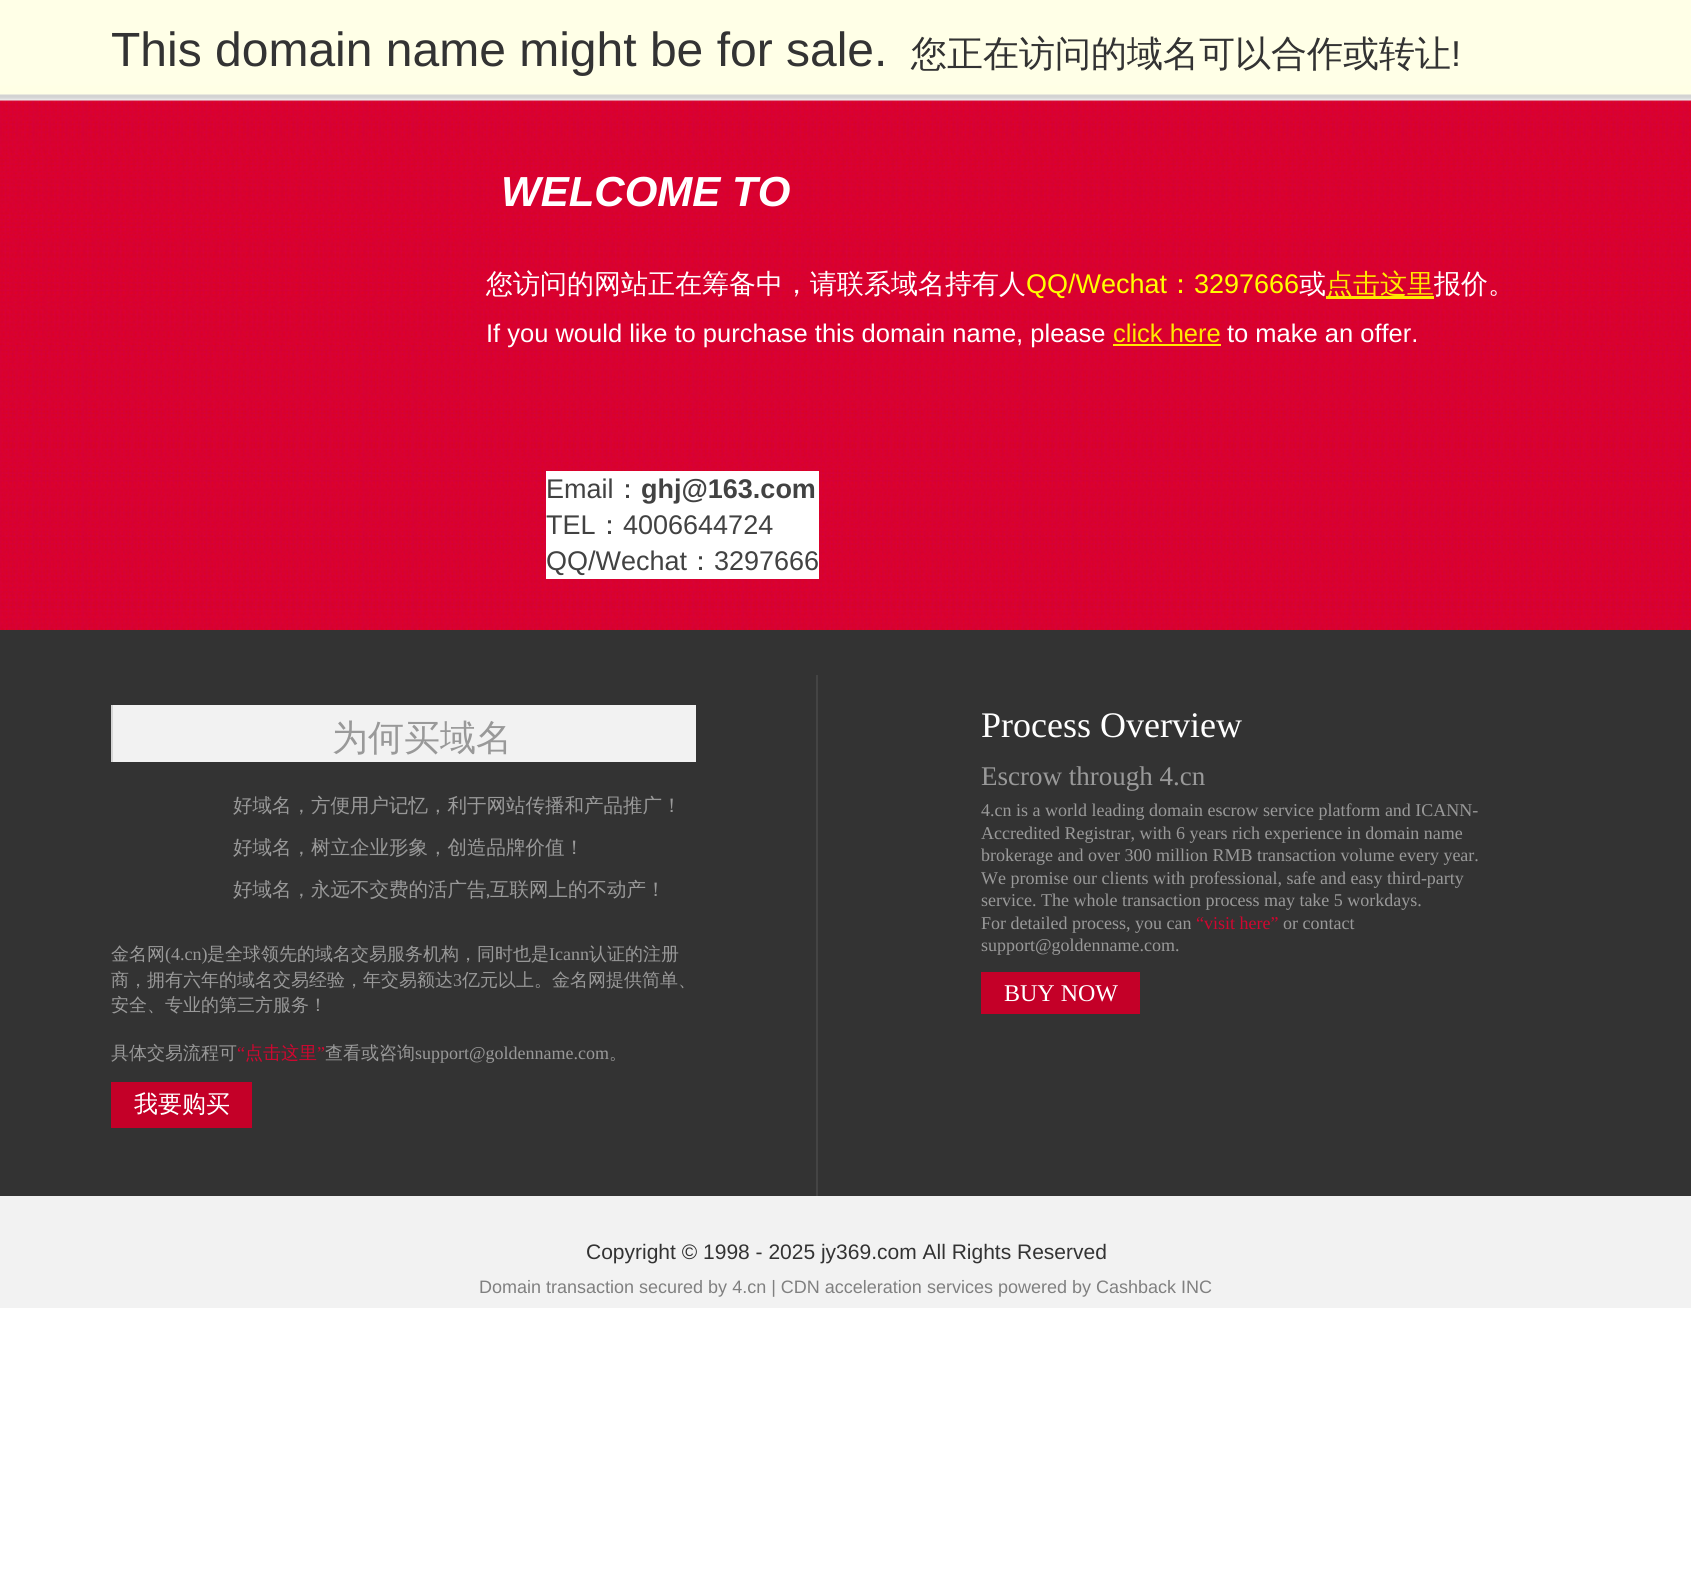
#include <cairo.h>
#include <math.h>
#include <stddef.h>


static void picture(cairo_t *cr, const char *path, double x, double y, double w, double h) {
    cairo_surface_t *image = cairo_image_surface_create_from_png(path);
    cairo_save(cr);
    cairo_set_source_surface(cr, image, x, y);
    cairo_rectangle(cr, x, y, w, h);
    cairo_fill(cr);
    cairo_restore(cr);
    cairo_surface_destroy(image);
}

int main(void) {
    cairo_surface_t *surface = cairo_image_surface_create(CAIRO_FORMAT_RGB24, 1691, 1591);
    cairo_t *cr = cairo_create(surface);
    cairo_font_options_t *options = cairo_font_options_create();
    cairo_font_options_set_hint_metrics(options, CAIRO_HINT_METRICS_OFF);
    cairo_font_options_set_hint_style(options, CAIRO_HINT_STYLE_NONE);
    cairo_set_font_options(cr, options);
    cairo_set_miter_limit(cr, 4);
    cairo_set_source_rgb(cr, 1, 1, 1);
    cairo_paint(cr);
    cairo_set_source_rgb(cr, 0.949, 0.949, 0.949);
    cairo_rectangle(cr, 0, 100, 1691, 1208);
    cairo_fill(cr);
    picture(cr, "img1.png", 0, 0, 1691, 101);
    cairo_select_font_face(cr, "Liberation Sans", CAIRO_FONT_SLANT_NORMAL, CAIRO_FONT_WEIGHT_NORMAL);
    cairo_set_font_size(cr, 48);
    cairo_set_source_rgb(cr, 0.2, 0.2, 0.2);
    cairo_move_to(cr, 111, 66);
    cairo_show_text(cr, "This domain name might be for sale.");
    cairo_select_font_face(cr, "WenQuanYi Zen Hei Medium", CAIRO_FONT_SLANT_NORMAL, CAIRO_FONT_WEIGHT_NORMAL);
    cairo_set_font_size(cr, 36);
    cairo_move_to(cr, 911, 66);
    cairo_show_text(cr, "您正在访问的域名可以合作或转让");
    cairo_select_font_face(cr, "Liberation Sans", CAIRO_FONT_SLANT_NORMAL, CAIRO_FONT_WEIGHT_NORMAL);
    cairo_move_to(cr, 1451, 66);
    cairo_show_text(cr, "!");
    picture(cr, "img2.png", 0, 100, 1691, 530);
    cairo_select_font_face(cr, "Liberation Sans", CAIRO_FONT_SLANT_ITALIC, CAIRO_FONT_WEIGHT_BOLD);
    cairo_set_font_size(cr, 42);
    cairo_set_source_rgb(cr, 1, 1, 1);
    cairo_move_to(cr, 501, 206);
    cairo_show_text(cr, "WELCOME TO");
    cairo_select_font_face(cr, "WenQuanYi Zen Hei Medium", CAIRO_FONT_SLANT_NORMAL, CAIRO_FONT_WEIGHT_NORMAL);
    cairo_set_font_size(cr, 27);
    cairo_move_to(cr, 486, 293);
    cairo_show_text(cr, "您访问的网站正在筹备中，请联系域名持有人");
    cairo_select_font_face(cr, "Liberation Sans", CAIRO_FONT_SLANT_NORMAL, CAIRO_FONT_WEIGHT_NORMAL);
    cairo_set_source_rgb(cr, 1, 1, 0);
    cairo_move_to(cr, 1026, 293);
    cairo_show_text(cr, "QQ/Wechat");
    cairo_select_font_face(cr, "WenQuanYi Zen Hei Medium", CAIRO_FONT_SLANT_NORMAL, CAIRO_FONT_WEIGHT_NORMAL);
    cairo_move_to(cr, 1167, 293);
    cairo_show_text(cr, "：");
    cairo_select_font_face(cr, "Liberation Sans", CAIRO_FONT_SLANT_NORMAL, CAIRO_FONT_WEIGHT_NORMAL);
    cairo_move_to(cr, 1194, 293);
    cairo_show_text(cr, "3297666");
    cairo_select_font_face(cr, "WenQuanYi Zen Hei Medium", CAIRO_FONT_SLANT_NORMAL, CAIRO_FONT_WEIGHT_NORMAL);
    cairo_set_source_rgb(cr, 1, 1, 1);
    cairo_move_to(cr, 1299, 293);
    cairo_show_text(cr, "或");
    cairo_set_source_rgb(cr, 1, 0.914, 0);
    cairo_rectangle(cr, 1326, 296, 108, 3);
    cairo_fill(cr);
    cairo_move_to(cr, 1326, 293);
    cairo_show_text(cr, "点击这里");
    cairo_set_source_rgb(cr, 1, 1, 1);
    cairo_move_to(cr, 1434, 293);
    cairo_show_text(cr, "报价。");
    cairo_select_font_face(cr, "Liberation Sans", CAIRO_FONT_SLANT_NORMAL, CAIRO_FONT_WEIGHT_NORMAL);
    cairo_set_font_size(cr, 25.5);
    cairo_move_to(cr, 486, 342);
    cairo_show_text(cr, "If you would like to purchase this domain name, please");
    cairo_set_source_rgb(cr, 1, 0.914, 0);
    cairo_move_to(cr, 1113, 342);
    cairo_show_text(cr, "click here");
    cairo_rectangle(cr, 1113, 344, 108, 2);
    cairo_fill(cr);
    cairo_set_source_rgb(cr, 1, 1, 1);
    cairo_move_to(cr, 1227, 342);
    cairo_show_text(cr, "to make an offer.");
    cairo_rectangle(cr, 546, 471, 273, 108);
    cairo_fill(cr);
    cairo_set_font_size(cr, 27);
    cairo_set_source_rgb(cr, 0.259, 0.259, 0.259);
    cairo_move_to(cr, 546, 498);
    cairo_show_text(cr, "Email");
    cairo_select_font_face(cr, "WenQuanYi Zen Hei Medium", CAIRO_FONT_SLANT_NORMAL, CAIRO_FONT_WEIGHT_NORMAL);
    cairo_move_to(cr, 614, 498);
    cairo_show_text(cr, "：");
    cairo_select_font_face(cr, "Liberation Sans", CAIRO_FONT_SLANT_NORMAL, CAIRO_FONT_WEIGHT_BOLD);
    cairo_move_to(cr, 641, 498);
    cairo_show_text(cr, "ghj@163.com");
    cairo_select_font_face(cr, "Liberation Sans", CAIRO_FONT_SLANT_NORMAL, CAIRO_FONT_WEIGHT_NORMAL);
    cairo_move_to(cr, 546, 534);
    cairo_show_text(cr, "TEL");
    cairo_select_font_face(cr, "WenQuanYi Zen Hei Medium", CAIRO_FONT_SLANT_NORMAL, CAIRO_FONT_WEIGHT_NORMAL);
    cairo_move_to(cr, 596, 534);
    cairo_show_text(cr, "：");
    cairo_select_font_face(cr, "Liberation Sans", CAIRO_FONT_SLANT_NORMAL, CAIRO_FONT_WEIGHT_NORMAL);
    cairo_move_to(cr, 623, 534);
    cairo_show_text(cr, "4006644724");
    cairo_move_to(cr, 546, 570);
    cairo_show_text(cr, "QQ/Wechat");
    cairo_select_font_face(cr, "WenQuanYi Zen Hei Medium", CAIRO_FONT_SLANT_NORMAL, CAIRO_FONT_WEIGHT_NORMAL);
    cairo_move_to(cr, 687, 570);
    cairo_show_text(cr, "：");
    cairo_select_font_face(cr, "Liberation Sans", CAIRO_FONT_SLANT_NORMAL, CAIRO_FONT_WEIGHT_NORMAL);
    cairo_move_to(cr, 714, 570);
    cairo_show_text(cr, "3297666");
    cairo_set_source_rgb(cr, 0.2, 0.2, 0.2);
    cairo_rectangle(cr, 0, 630, 1691, 566);
    cairo_fill(cr);
    cairo_set_source_rgb(cr, 0.267, 0.267, 0.267);
    cairo_rectangle(cr, 816, 675, 2, 521);
    cairo_fill(cr);
    cairo_set_source_rgb(cr, 0.949, 0.949, 0.949);
    cairo_rectangle(cr, 113, 705, 583, 57);
    cairo_fill(cr);
    cairo_set_source_rgb(cr, 0.843, 0.843, 0.843);
    cairo_rectangle(cr, 111, 705, 2, 57);
    cairo_fill(cr);
    cairo_select_font_face(cr, "WenQuanYi Zen Hei Medium", CAIRO_FONT_SLANT_NORMAL, CAIRO_FONT_WEIGHT_NORMAL);
    cairo_set_font_size(cr, 36);
    cairo_set_source_rgb(cr, 0.6, 0.6, 0.6);
    cairo_move_to(cr, 332, 750);
    cairo_show_text(cr, "为何买域名");
    cairo_set_font_size(cr, 19.5);
    cairo_move_to(cr, 233, 812);
    cairo_show_text(cr, "好域名，方便用户记忆，利于网站传播和产品推广！");
    cairo_move_to(cr, 233, 854);
    cairo_show_text(cr, "好域名，树立企业形象，创造品牌价值！");
    cairo_move_to(cr, 233, 896);
    cairo_show_text(cr, "好域名，永远不交费的活广告");
    cairo_select_font_face(cr, "Caladea", CAIRO_FONT_SLANT_NORMAL, CAIRO_FONT_WEIGHT_NORMAL);
    cairo_move_to(cr, 486, 896);
    cairo_show_text(cr, ",");
    cairo_select_font_face(cr, "WenQuanYi Zen Hei Medium", CAIRO_FONT_SLANT_NORMAL, CAIRO_FONT_WEIGHT_NORMAL);
    cairo_move_to(cr, 490, 896);
    cairo_show_text(cr, "互联网上的不动产！");
    cairo_set_font_size(cr, 18);
    cairo_move_to(cr, 111, 960);
    cairo_show_text(cr, "金名网");
    cairo_select_font_face(cr, "Liberation Serif", CAIRO_FONT_SLANT_NORMAL, CAIRO_FONT_WEIGHT_NORMAL);
    cairo_move_to(cr, 165, 960);
    cairo_show_text(cr, "(4.cn)");
    cairo_select_font_face(cr, "WenQuanYi Zen Hei Medium", CAIRO_FONT_SLANT_NORMAL, CAIRO_FONT_WEIGHT_NORMAL);
    cairo_move_to(cr, 207, 960);
    cairo_show_text(cr, "是全球领先的域名交易服务机构，同时也是");
    cairo_select_font_face(cr, "Liberation Serif", CAIRO_FONT_SLANT_NORMAL, CAIRO_FONT_WEIGHT_NORMAL);
    cairo_move_to(cr, 549, 960);
    cairo_show_text(cr, "Icann");
    cairo_select_font_face(cr, "WenQuanYi Zen Hei Medium", CAIRO_FONT_SLANT_NORMAL, CAIRO_FONT_WEIGHT_NORMAL);
    cairo_move_to(cr, 589, 960);
    cairo_show_text(cr, "认证的注册");
    cairo_move_to(cr, 111, 986);
    cairo_show_text(cr, "商，拥有六年的域名交易经验，年交易额达");
    cairo_select_font_face(cr, "Liberation Serif", CAIRO_FONT_SLANT_NORMAL, CAIRO_FONT_WEIGHT_NORMAL);
    cairo_move_to(cr, 453, 986);
    cairo_show_text(cr, "3");
    cairo_select_font_face(cr, "WenQuanYi Zen Hei Medium", CAIRO_FONT_SLANT_NORMAL, CAIRO_FONT_WEIGHT_NORMAL);
    cairo_move_to(cr, 462, 986);
    cairo_show_text(cr, "亿元以上。金名网提供简单、");
    cairo_move_to(cr, 111, 1011);
    cairo_show_text(cr, "安全、专业的第三方服务！");
    cairo_move_to(cr, 111, 1059);
    cairo_show_text(cr, "具体交易流程可");
    cairo_select_font_face(cr, "Liberation Serif", CAIRO_FONT_SLANT_NORMAL, CAIRO_FONT_WEIGHT_NORMAL);
    cairo_set_source_rgb(cr, 0.82, 0.027, 0.188);
    cairo_move_to(cr, 237, 1059);
    cairo_show_text(cr, "“");
    cairo_select_font_face(cr, "WenQuanYi Zen Hei Medium", CAIRO_FONT_SLANT_NORMAL, CAIRO_FONT_WEIGHT_NORMAL);
    cairo_move_to(cr, 245, 1059);
    cairo_show_text(cr, "点击这里");
    cairo_select_font_face(cr, "Liberation Serif", CAIRO_FONT_SLANT_NORMAL, CAIRO_FONT_WEIGHT_NORMAL);
    cairo_move_to(cr, 317, 1059);
    cairo_show_text(cr, "”");
    cairo_select_font_face(cr, "WenQuanYi Zen Hei Medium", CAIRO_FONT_SLANT_NORMAL, CAIRO_FONT_WEIGHT_NORMAL);
    cairo_set_source_rgb(cr, 0.6, 0.6, 0.6);
    cairo_move_to(cr, 325, 1059);
    cairo_show_text(cr, "查看或咨询");
    cairo_select_font_face(cr, "Liberation Serif", CAIRO_FONT_SLANT_NORMAL, CAIRO_FONT_WEIGHT_NORMAL);
    cairo_move_to(cr, 415, 1059);
    cairo_show_text(cr, "support@goldenname.com");
    cairo_select_font_face(cr, "WenQuanYi Zen Hei Medium", CAIRO_FONT_SLANT_NORMAL, CAIRO_FONT_WEIGHT_NORMAL);
    cairo_move_to(cr, 609, 1059);
    cairo_show_text(cr, "。");
    cairo_set_source_rgb(cr, 0.769, 0, 0.157);
    cairo_rectangle(cr, 111, 1082, 141, 46);
    cairo_fill(cr);
    cairo_set_font_size(cr, 24);
    cairo_set_source_rgb(cr, 1, 1, 1);
    cairo_move_to(cr, 134, 1112);
    cairo_show_text(cr, "我要购买");
    cairo_select_font_face(cr, "Liberation Serif", CAIRO_FONT_SLANT_NORMAL, CAIRO_FONT_WEIGHT_NORMAL);
    cairo_set_font_size(cr, 36);
    cairo_move_to(cr, 981, 737);
    cairo_show_text(cr, "Process Overview");
    cairo_set_font_size(cr, 27);
    cairo_set_source_rgb(cr, 0.6, 0.6, 0.6);
    cairo_move_to(cr, 981, 785);
    cairo_show_text(cr, "Escrow through 4.cn");
    cairo_set_font_size(cr, 18);
    cairo_move_to(cr, 981, 816);
    cairo_show_text(cr, "4.cn is a world leading domain escrow service platform and ICANN-");
    cairo_move_to(cr, 981, 839);
    cairo_show_text(cr, "Accredited Registrar, with 6 years rich experience in domain name");
    cairo_move_to(cr, 981, 861);
    cairo_show_text(cr, "brokerage and over 300 million RMB transaction volume every year.");
    cairo_move_to(cr, 981, 884);
    cairo_show_text(cr, "We promise our clients with professional, safe and easy third-party");
    cairo_move_to(cr, 981, 906);
    cairo_show_text(cr, "service. The whole transaction process may take 5 workdays.");
    cairo_move_to(cr, 981, 929);
    cairo_show_text(cr, "For detailed process, you can");
    cairo_set_source_rgb(cr, 0.82, 0.027, 0.188);
    cairo_move_to(cr, 1196, 929);
    cairo_show_text(cr, "“visit here”");
    cairo_set_source_rgb(cr, 0.6, 0.6, 0.6);
    cairo_move_to(cr, 1283, 929);
    cairo_show_text(cr, "or contact");
    cairo_move_to(cr, 981, 951);
    cairo_show_text(cr, "support@goldenname.com.");
    cairo_set_source_rgb(cr, 0.769, 0, 0.157);
    cairo_rectangle(cr, 981, 972, 159, 42);
    cairo_fill(cr);
    cairo_set_font_size(cr, 24);
    cairo_set_source_rgb(cr, 1, 1, 1);
    cairo_move_to(cr, 1004, 1001);
    cairo_show_text(cr, "BUY NOW");
    cairo_select_font_face(cr, "Liberation Sans", CAIRO_FONT_SLANT_NORMAL, CAIRO_FONT_WEIGHT_NORMAL);
    cairo_set_font_size(cr, 21);
    cairo_set_source_rgb(cr, 0.2, 0.2, 0.2);
    cairo_move_to(cr, 586, 1259);
    cairo_show_text(cr, "Copyright © 1998 - 2025 jy369.com All Rights Reserved");
    cairo_set_font_size(cr, 18);
    cairo_set_source_rgb(cr, 0.502, 0.502, 0.502);
    cairo_move_to(cr, 479, 1293);
    cairo_show_text(cr, "Domain transaction secured by 4.cn | CDN acceleration services powered by Cashback INC");
    cairo_surface_write_to_png(surface, "page.png");
    cairo_font_options_destroy(options);
    cairo_destroy(cr);
    cairo_surface_destroy(surface);
    return 0;
}
